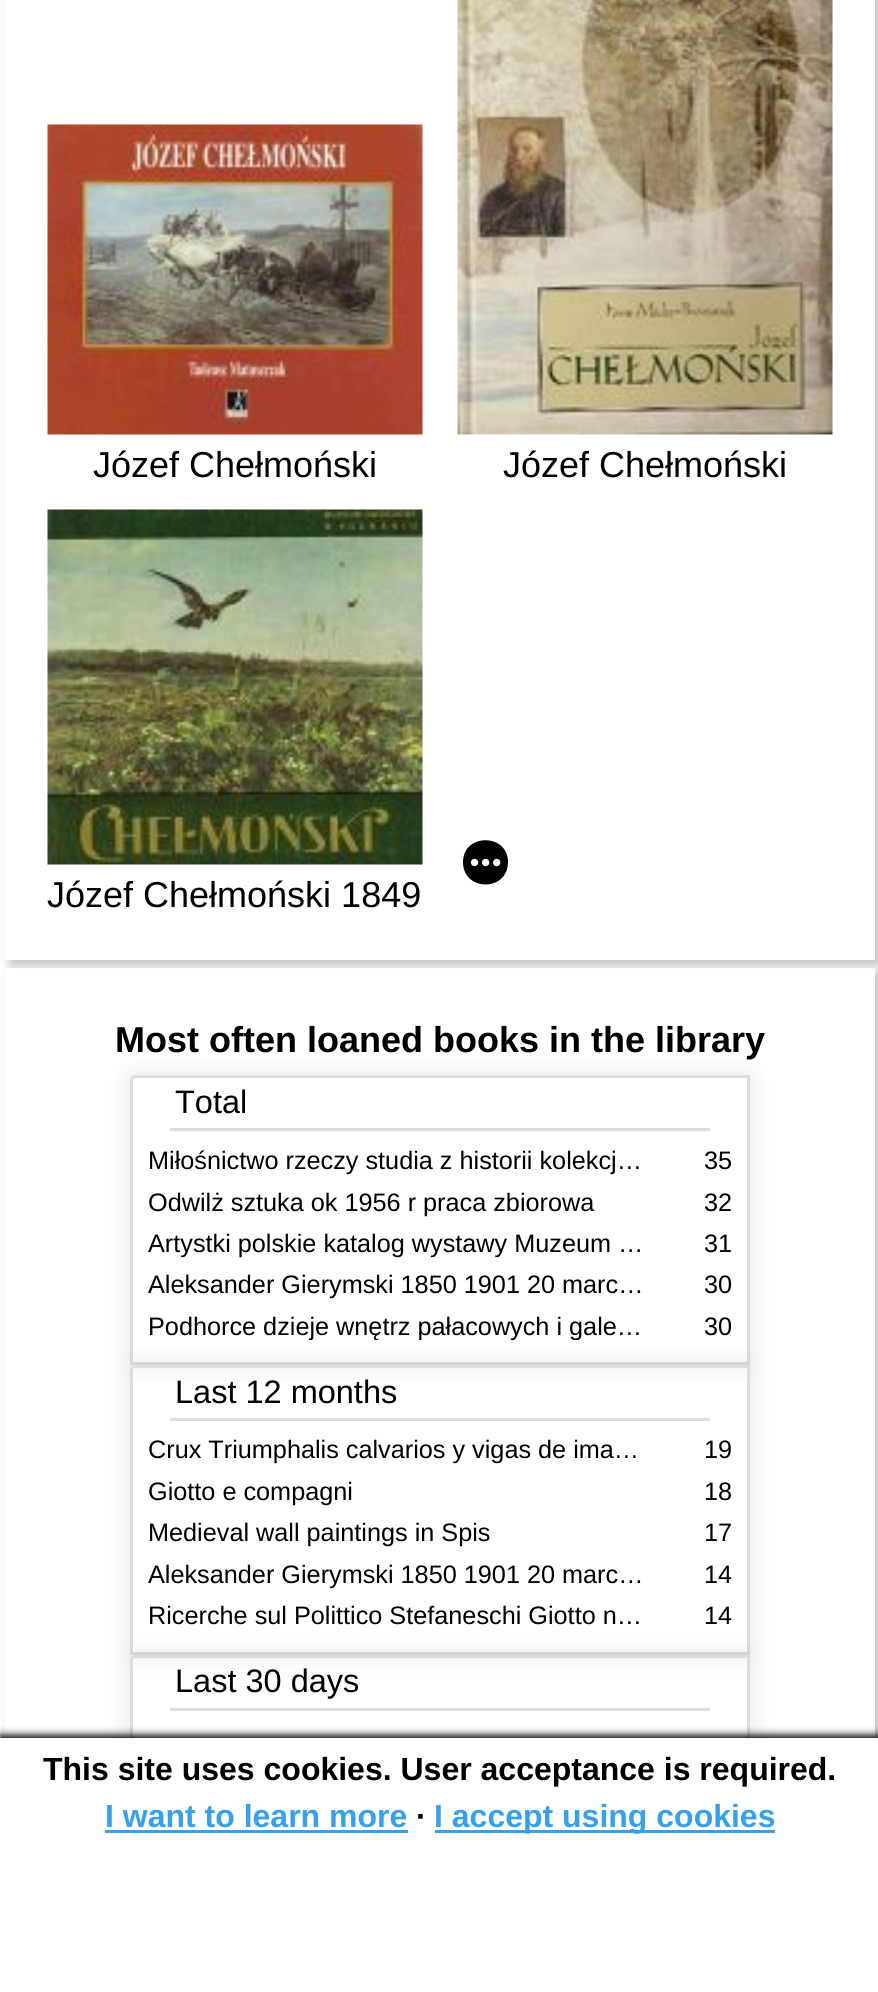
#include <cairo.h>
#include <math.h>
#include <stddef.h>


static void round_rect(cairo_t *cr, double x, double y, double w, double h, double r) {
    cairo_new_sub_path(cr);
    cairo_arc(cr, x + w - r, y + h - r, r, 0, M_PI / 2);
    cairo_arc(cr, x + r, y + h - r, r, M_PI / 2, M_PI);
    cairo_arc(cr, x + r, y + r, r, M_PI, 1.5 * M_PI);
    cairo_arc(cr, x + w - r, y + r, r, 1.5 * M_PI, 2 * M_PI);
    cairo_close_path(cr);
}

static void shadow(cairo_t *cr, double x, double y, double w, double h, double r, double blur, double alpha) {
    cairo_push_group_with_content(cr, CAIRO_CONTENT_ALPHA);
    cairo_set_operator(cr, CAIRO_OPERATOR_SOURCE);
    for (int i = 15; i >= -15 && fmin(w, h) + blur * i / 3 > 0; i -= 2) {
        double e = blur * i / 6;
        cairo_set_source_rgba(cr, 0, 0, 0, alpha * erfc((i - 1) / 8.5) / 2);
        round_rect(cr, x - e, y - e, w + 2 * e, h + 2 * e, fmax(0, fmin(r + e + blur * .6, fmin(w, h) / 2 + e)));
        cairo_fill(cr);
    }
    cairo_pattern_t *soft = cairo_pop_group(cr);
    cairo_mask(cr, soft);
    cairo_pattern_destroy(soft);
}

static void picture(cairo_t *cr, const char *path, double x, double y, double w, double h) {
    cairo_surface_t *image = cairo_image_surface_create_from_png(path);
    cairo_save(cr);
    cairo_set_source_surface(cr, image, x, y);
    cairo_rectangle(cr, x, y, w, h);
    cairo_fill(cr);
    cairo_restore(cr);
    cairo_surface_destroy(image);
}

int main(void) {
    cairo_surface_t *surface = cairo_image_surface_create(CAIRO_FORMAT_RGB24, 878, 1992);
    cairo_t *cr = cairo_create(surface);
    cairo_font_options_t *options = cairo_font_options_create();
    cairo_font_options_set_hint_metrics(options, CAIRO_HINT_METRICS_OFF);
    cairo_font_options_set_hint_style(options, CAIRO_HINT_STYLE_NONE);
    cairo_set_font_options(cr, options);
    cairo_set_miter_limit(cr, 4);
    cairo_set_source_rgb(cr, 1, 1, 1);
    cairo_paint(cr);
    cairo_save(cr);
    cairo_set_fill_rule(cr, CAIRO_FILL_RULE_EVEN_ODD);
    cairo_new_path(cr);
    cairo_move_to(cr, 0, 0);
    cairo_line_to(cr, 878, 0);
    cairo_line_to(cr, 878, 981);
    cairo_line_to(cr, 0, 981);
    cairo_close_path(cr);
    cairo_move_to(cr, 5, -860);
    cairo_line_to(cr, 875, -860);
    cairo_line_to(cr, 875, 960);
    cairo_line_to(cr, 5, 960);
    cairo_close_path(cr);
    cairo_clip(cr);
    cairo_set_source_rgb(cr, 0, 0, 0);
    shadow(cr, 10, -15, 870, 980, 0, 5, 0.25);
    cairo_restore(cr);
    picture(cr, "img1.png", 47, 124, 376, 311);
    cairo_select_font_face(cr, "Liberation Sans", CAIRO_FONT_SLANT_NORMAL, CAIRO_FONT_WEIGHT_NORMAL);
    cairo_set_font_size(cr, 36);
    cairo_set_source_rgb(cr, 0, 0, 0);
    cairo_move_to(cr, 93, 477);
    cairo_show_text(cr, "Józef Chełmoński");
    picture(cr, "img2.png", 457, 0, 376, 435);
    cairo_move_to(cr, 503, 477);
    cairo_show_text(cr, "Józef Chełmoński");
    cairo_new_path(cr);
    cairo_move_to(cr, 463, 862);
    cairo_curve_to(cr, 463, 833, 508, 833, 508, 862);
    cairo_curve_to(cr, 508, 892, 463, 892, 463, 862);
    cairo_close_path(cr);
    cairo_fill(cr);
    picture(cr, "img3.png", 470, 858, 31, 9);
    picture(cr, "img4.png", 47, 509, 376, 356);
    cairo_move_to(cr, 47, 907);
    cairo_show_text(cr, "Józef Chełmoński 1849");
    cairo_save(cr);
    cairo_set_fill_rule(cr, CAIRO_FILL_RULE_EVEN_ODD);
    cairo_new_path(cr);
    cairo_move_to(cr, 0, 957);
    cairo_line_to(cr, 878, 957);
    cairo_line_to(cr, 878, 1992);
    cairo_line_to(cr, 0, 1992);
    cairo_close_path(cr);
    cairo_move_to(cr, 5, 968);
    cairo_line_to(cr, 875, 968);
    cairo_line_to(cr, 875, 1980);
    cairo_line_to(cr, 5, 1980);
    cairo_close_path(cr);
    cairo_clip(cr);
    cairo_set_source_rgb(cr, 0, 0, 0);
    shadow(cr, 10, 973, 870, 1012, 0, 5, 0.25);
    cairo_restore(cr);
    cairo_set_source_rgba(cr, 1, 1, 1, 0.95);
    cairo_rectangle(cr, 5, 968, 870, 6);
    cairo_fill(cr);
    cairo_select_font_face(cr, "Liberation Sans", CAIRO_FONT_SLANT_NORMAL, CAIRO_FONT_WEIGHT_BOLD);
    cairo_set_source_rgb(cr, 0, 0, 0);
    cairo_move_to(cr, 115, 1052);
    cairo_show_text(cr, "Most often loaned books in the library");
    cairo_save(cr);
    cairo_set_fill_rule(cr, CAIRO_FILL_RULE_EVEN_ODD);
    cairo_new_path(cr);
    cairo_move_to(cr, 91, 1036);
    cairo_line_to(cr, 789, 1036);
    cairo_line_to(cr, 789, 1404);
    cairo_line_to(cr, 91, 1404);
    cairo_close_path(cr);
    cairo_move_to(cr, 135, 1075);
    cairo_line_to(cr, 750, 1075);
    cairo_line_to(cr, 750, 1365);
    cairo_line_to(cr, 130, 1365);
    cairo_line_to(cr, 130, 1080);
    cairo_curve_to(cr, 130, 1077, 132, 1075, 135, 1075);
    cairo_close_path(cr);
    cairo_clip(cr);
    cairo_set_source_rgb(cr, 0, 0, 0);
    shadow(cr, 130, 1075, 620, 290, 5, 12.5, 0.1);
    cairo_restore(cr);
    cairo_new_path(cr);
    cairo_move_to(cr, 135, 1076.5);
    cairo_line_to(cr, 748.5, 1076.5);
    cairo_line_to(cr, 748.5, 1363.5);
    cairo_line_to(cr, 131.5, 1363.5);
    cairo_line_to(cr, 131.5, 1080);
    cairo_curve_to(cr, 131.5, 1078, 133, 1076.5, 135, 1076.5);
    cairo_close_path(cr);
    cairo_set_source_rgb(cr, 0.867, 0.867, 0.867);
    cairo_set_line_width(cr, 3);
    cairo_stroke(cr);
    cairo_rectangle(cr, 170, 1128, 540, 3);
    cairo_fill(cr);
    cairo_select_font_face(cr, "Liberation Sans", CAIRO_FONT_SLANT_NORMAL, CAIRO_FONT_WEIGHT_NORMAL);
    cairo_set_font_size(cr, 32.5);
    cairo_set_source_rgb(cr, 0, 0, 0);
    cairo_move_to(cr, 175, 1113);
    cairo_show_text(cr, "Total");
    cairo_set_font_size(cr, 25.25);
    cairo_move_to(cr, 148, 1169);
    cairo_show_text(cr, "Miłośnictwo rzeczy studia z historii kolekcj…");
    cairo_move_to(cr, 704, 1169);
    cairo_show_text(cr, "35");
    cairo_move_to(cr, 148, 1211);
    cairo_show_text(cr, "Odwilż sztuka ok 1956 r praca zbiorowa");
    cairo_move_to(cr, 704, 1211);
    cairo_show_text(cr, "32");
    cairo_move_to(cr, 148, 1252);
    cairo_show_text(cr, "Artystki polskie katalog wystawy Muzeum …");
    cairo_move_to(cr, 704, 1252);
    cairo_show_text(cr, "31");
    cairo_move_to(cr, 148, 1293);
    cairo_show_text(cr, "Aleksander Gierymski 1850 1901 20 marc…");
    cairo_move_to(cr, 704, 1293);
    cairo_show_text(cr, "30");
    cairo_save(cr);
    cairo_set_fill_rule(cr, CAIRO_FILL_RULE_EVEN_ODD);
    cairo_new_path(cr);
    cairo_move_to(cr, 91, 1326);
    cairo_line_to(cr, 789, 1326);
    cairo_line_to(cr, 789, 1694);
    cairo_line_to(cr, 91, 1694);
    cairo_close_path(cr);
    cairo_move_to(cr, 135, 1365);
    cairo_line_to(cr, 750, 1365);
    cairo_line_to(cr, 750, 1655);
    cairo_line_to(cr, 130, 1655);
    cairo_line_to(cr, 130, 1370);
    cairo_curve_to(cr, 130, 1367, 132, 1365, 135, 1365);
    cairo_close_path(cr);
    cairo_clip(cr);
    cairo_set_source_rgb(cr, 0, 0, 0);
    shadow(cr, 130, 1365, 620, 290, 5, 12.5, 0.1);
    cairo_restore(cr);
    cairo_save(cr);
    cairo_rectangle(cr, 148, 1313, 500, 27);
    cairo_clip(cr);
    cairo_move_to(cr, 148, 1335);
    cairo_show_text(cr, "Podhorce dzieje wnętrz pałacowych i gale…");
    cairo_restore(cr);
    cairo_move_to(cr, 704, 1335);
    cairo_show_text(cr, "30");
    cairo_new_path(cr);
    cairo_move_to(cr, 135, 1366.5);
    cairo_line_to(cr, 748.5, 1366.5);
    cairo_line_to(cr, 748.5, 1653.5);
    cairo_line_to(cr, 131.5, 1653.5);
    cairo_line_to(cr, 131.5, 1370);
    cairo_curve_to(cr, 131.5, 1368, 133, 1366.5, 135, 1366.5);
    cairo_close_path(cr);
    cairo_set_source_rgb(cr, 0.867, 0.867, 0.867);
    cairo_stroke(cr);
    cairo_rectangle(cr, 170, 1418, 540, 3);
    cairo_fill(cr);
    cairo_set_font_size(cr, 32.5);
    cairo_set_source_rgb(cr, 0, 0, 0);
    cairo_move_to(cr, 175, 1403);
    cairo_show_text(cr, "Last 12 months");
    cairo_set_font_size(cr, 25.25);
    cairo_move_to(cr, 148, 1458);
    cairo_show_text(cr, "Crux Triumphalis calvarios y vigas de ima…");
    cairo_move_to(cr, 704, 1458);
    cairo_show_text(cr, "19");
    cairo_move_to(cr, 148, 1500);
    cairo_show_text(cr, "Giotto e compagni");
    cairo_move_to(cr, 704, 1500);
    cairo_show_text(cr, "18");
    cairo_move_to(cr, 148, 1541);
    cairo_show_text(cr, "Medieval wall paintings in Spis");
    cairo_move_to(cr, 704, 1541);
    cairo_show_text(cr, "17");
    cairo_move_to(cr, 148, 1583);
    cairo_show_text(cr, "Aleksander Gierymski 1850 1901 20 marc…");
    cairo_move_to(cr, 704, 1583);
    cairo_show_text(cr, "14");
    cairo_save(cr);
    cairo_set_fill_rule(cr, CAIRO_FILL_RULE_EVEN_ODD);
    cairo_new_path(cr);
    cairo_move_to(cr, 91, 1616);
    cairo_line_to(cr, 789, 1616);
    cairo_line_to(cr, 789, 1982);
    cairo_line_to(cr, 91, 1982);
    cairo_close_path(cr);
    cairo_move_to(cr, 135, 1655);
    cairo_line_to(cr, 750, 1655);
    cairo_line_to(cr, 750, 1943);
    cairo_line_to(cr, 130, 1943);
    cairo_line_to(cr, 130, 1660);
    cairo_curve_to(cr, 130, 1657, 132, 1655, 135, 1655);
    cairo_close_path(cr);
    cairo_clip(cr);
    cairo_set_source_rgb(cr, 0, 0, 0);
    shadow(cr, 130, 1655, 620, 288, 5, 12.5, 0.1);
    cairo_restore(cr);
    cairo_move_to(cr, 148, 1624);
    cairo_show_text(cr, "Ricerche sul Polittico Stefaneschi Giotto n…");
    cairo_move_to(cr, 704, 1624);
    cairo_show_text(cr, "14");
    cairo_new_path(cr);
    cairo_move_to(cr, 135, 1656.5);
    cairo_line_to(cr, 748.5, 1656.5);
    cairo_line_to(cr, 748.5, 1941.5);
    cairo_line_to(cr, 131.5, 1941.5);
    cairo_line_to(cr, 131.5, 1660);
    cairo_curve_to(cr, 131.5, 1658, 133, 1656.5, 135, 1656.5);
    cairo_close_path(cr);
    cairo_set_source_rgb(cr, 0.867, 0.867, 0.867);
    cairo_stroke(cr);
    cairo_rectangle(cr, 170, 1708, 540, 3);
    cairo_fill(cr);
    cairo_set_font_size(cr, 32.5);
    cairo_set_source_rgb(cr, 0, 0, 0);
    cairo_move_to(cr, 175, 1692);
    cairo_show_text(cr, "Last 30 days");
    cairo_set_source_rgb(cr, 0, 0, 0);
    shadow(cr, 0, 1735, 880, 255, 0, 4, 1);
    cairo_set_source_rgb(cr, 1, 1, 1);
    cairo_rectangle(cr, 0, 1738, 878, 254);
    cairo_fill(cr);
    cairo_select_font_face(cr, "Liberation Sans", CAIRO_FONT_SLANT_NORMAL, CAIRO_FONT_WEIGHT_BOLD);
    cairo_set_font_size(cr, 32);
    cairo_set_source_rgb(cr, 0, 0, 0);
    cairo_move_to(cr, 43, 1780);
    cairo_show_text(cr, "This site uses cookies. User acceptance is required.");
    cairo_set_source_rgb(cr, 0.212, 0.627, 0.925);
    cairo_move_to(cr, 105, 1827);
    cairo_show_text(cr, "I want to learn more");
    cairo_rectangle(cr, 105, 1830, 303, 3);
    cairo_fill(cr);
    cairo_set_source_rgb(cr, 0, 0, 0);
    cairo_move_to(cr, 416, 1827);
    cairo_show_text(cr, "∙");
    cairo_set_source_rgb(cr, 0.212, 0.627, 0.925);
    cairo_rectangle(cr, 435, 1830, 340, 3);
    cairo_fill(cr);
    cairo_move_to(cr, 434, 1827);
    cairo_show_text(cr, "I accept using cookies");
    cairo_surface_write_to_png(surface, "page.png");
    cairo_font_options_destroy(options);
    cairo_destroy(cr);
    cairo_surface_destroy(surface);
    return 0;
}
